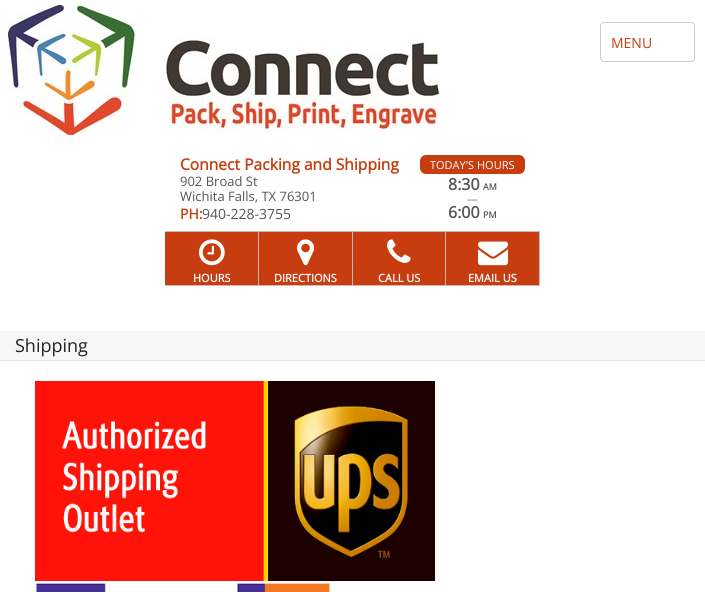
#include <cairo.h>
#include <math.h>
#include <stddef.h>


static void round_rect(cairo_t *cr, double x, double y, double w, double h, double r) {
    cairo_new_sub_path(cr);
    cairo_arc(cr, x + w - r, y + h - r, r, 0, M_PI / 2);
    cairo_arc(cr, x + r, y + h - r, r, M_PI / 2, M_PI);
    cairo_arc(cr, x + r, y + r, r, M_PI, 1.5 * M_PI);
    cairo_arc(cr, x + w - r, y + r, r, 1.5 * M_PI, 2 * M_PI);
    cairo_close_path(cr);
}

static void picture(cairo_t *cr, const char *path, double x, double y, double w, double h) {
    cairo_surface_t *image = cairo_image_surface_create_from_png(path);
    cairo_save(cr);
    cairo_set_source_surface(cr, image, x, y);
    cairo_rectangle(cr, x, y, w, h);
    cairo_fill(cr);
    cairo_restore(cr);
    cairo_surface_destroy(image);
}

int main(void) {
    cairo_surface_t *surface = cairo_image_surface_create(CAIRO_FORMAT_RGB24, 705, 592);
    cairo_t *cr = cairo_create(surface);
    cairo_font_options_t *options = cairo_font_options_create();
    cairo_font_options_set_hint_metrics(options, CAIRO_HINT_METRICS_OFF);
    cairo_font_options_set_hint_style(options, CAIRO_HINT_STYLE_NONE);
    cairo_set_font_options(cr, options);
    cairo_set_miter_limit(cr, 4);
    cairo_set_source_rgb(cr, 1, 1, 1);
    cairo_paint(cr);
    picture(cr, "img1.png", 8, 5, 433, 130);
    round_rect(cr, 600.5, 22.5, 94, 39, 3.5);
    cairo_set_source_rgb(cr, 0.8, 0.8, 0.8);
    cairo_set_line_width(cr, 1);
    cairo_stroke(cr);
    cairo_select_font_face(cr, "Open Sans", CAIRO_FONT_SLANT_NORMAL, CAIRO_FONT_WEIGHT_NORMAL);
    cairo_set_font_size(cr, 14);
    cairo_set_source_rgb(cr, 0.78, 0.239, 0.063);
    cairo_move_to(cr, 611, 48);
    cairo_show_text(cr, "MENU");
    cairo_select_font_face(cr, "Open Sans", CAIRO_FONT_SLANT_NORMAL, CAIRO_FONT_WEIGHT_BOLD);
    cairo_set_font_size(cr, 15.6);
    cairo_move_to(cr, 180, 170);
    cairo_show_text(cr, "Connect Packing and Shipping");
    cairo_select_font_face(cr, "Open Sans", CAIRO_FONT_SLANT_NORMAL, CAIRO_FONT_WEIGHT_NORMAL);
    cairo_set_font_size(cr, 13);
    cairo_set_source_rgb(cr, 0.333, 0.333, 0.333);
    cairo_move_to(cr, 180, 186);
    cairo_show_text(cr, "902 Broad St");
    cairo_move_to(cr, 180, 201);
    cairo_show_text(cr, "Wichita Falls, TX 76301");
    cairo_select_font_face(cr, "Open Sans", CAIRO_FONT_SLANT_NORMAL, CAIRO_FONT_WEIGHT_BOLD);
    cairo_set_font_size(cr, 14);
    cairo_set_source_rgb(cr, 0.78, 0.239, 0.063);
    cairo_move_to(cr, 180, 219);
    cairo_show_text(cr, "PH:");
    cairo_select_font_face(cr, "Open Sans", CAIRO_FONT_SLANT_NORMAL, CAIRO_FONT_WEIGHT_NORMAL);
    cairo_set_source_rgb(cr, 0.333, 0.333, 0.333);
    cairo_move_to(cr, 202, 219);
    cairo_show_text(cr, "940-228-3755");
    cairo_set_source_rgb(cr, 0.78, 0.239, 0.063);
    round_rect(cr, 420, 155, 105, 19, 6);
    cairo_fill(cr);
    cairo_set_font_size(cr, 11);
    cairo_set_source_rgb(cr, 1, 1, 1);
    cairo_move_to(cr, 430, 169);
    cairo_show_text(cr, "TODAY'S HOURS");
    cairo_select_font_face(cr, "Open Sans", CAIRO_FONT_SLANT_NORMAL, CAIRO_FONT_WEIGHT_BOLD);
    cairo_set_font_size(cr, 16);
    cairo_set_source_rgb(cr, 0.333, 0.333, 0.333);
    cairo_move_to(cr, 448, 190);
    cairo_show_text(cr, "8:30");
    cairo_set_font_size(cr, 9);
    cairo_move_to(cr, 483, 190);
    cairo_show_text(cr, "AM");
    cairo_select_font_face(cr, "Open Sans", CAIRO_FONT_SLANT_NORMAL, CAIRO_FONT_WEIGHT_NORMAL);
    cairo_set_font_size(cr, 11);
    cairo_set_source_rgb(cr, 0.463, 0.463, 0.463);
    cairo_move_to(cr, 467, 203);
    cairo_show_text(cr, "—");
    cairo_select_font_face(cr, "Open Sans", CAIRO_FONT_SLANT_NORMAL, CAIRO_FONT_WEIGHT_BOLD);
    cairo_set_font_size(cr, 16);
    cairo_set_source_rgb(cr, 0.333, 0.333, 0.333);
    cairo_move_to(cr, 448, 218);
    cairo_show_text(cr, "6:00");
    cairo_set_font_size(cr, 9);
    cairo_move_to(cr, 483, 218);
    cairo_show_text(cr, "PM");
    cairo_set_source_rgb(cr, 0.78, 0.239, 0.063);
    cairo_rectangle(cr, 165, 232, 93, 53);
    cairo_fill(cr);
    cairo_set_source_rgb(cr, 0.816, 0.722, 0.706);
    cairo_rectangle(cr, 165, 231, 375, 1);
    cairo_fill(cr);
    cairo_rectangle(cr, 258, 231, 1, 55);
    cairo_fill(cr);
    cairo_rectangle(cr, 165, 285, 94, 1);
    cairo_fill(cr);
    picture(cr, "img2.png", 199, 239, 26, 27);
    cairo_set_font_size(cr, 11);
    cairo_set_source_rgb(cr, 1, 1, 1);
    cairo_move_to(cr, 193, 282);
    cairo_show_text(cr, "HOURS");
    cairo_set_source_rgb(cr, 0.78, 0.239, 0.063);
    cairo_rectangle(cr, 259, 232, 93, 53);
    cairo_fill(cr);
    cairo_set_source_rgb(cr, 0.816, 0.722, 0.706);
    cairo_rectangle(cr, 352, 231, 1, 55);
    cairo_fill(cr);
    cairo_rectangle(cr, 259, 285, 94, 1);
    cairo_fill(cr);
    picture(cr, "img3.png", 297, 239, 18, 27);
    cairo_set_source_rgb(cr, 1, 1, 1);
    cairo_move_to(cr, 274, 282);
    cairo_show_text(cr, "DIRECTIONS");
    cairo_set_source_rgb(cr, 0.78, 0.239, 0.063);
    cairo_rectangle(cr, 353, 232, 92, 53);
    cairo_fill(cr);
    cairo_set_source_rgb(cr, 0.816, 0.722, 0.706);
    cairo_rectangle(cr, 445, 231, 1, 55);
    cairo_fill(cr);
    cairo_rectangle(cr, 353, 285, 93, 1);
    cairo_fill(cr);
    picture(cr, "img4.png", 387, 239, 24, 24);
    cairo_set_source_rgb(cr, 1, 1, 1);
    cairo_move_to(cr, 378, 282);
    cairo_show_text(cr, "CALL US");
    cairo_set_source_rgb(cr, 0.78, 0.239, 0.063);
    cairo_rectangle(cr, 446, 232, 93, 53);
    cairo_fill(cr);
    cairo_set_source_rgb(cr, 0.816, 0.722, 0.706);
    cairo_rectangle(cr, 539, 231, 1, 55);
    cairo_fill(cr);
    cairo_rectangle(cr, 446, 285, 94, 1);
    cairo_fill(cr);
    picture(cr, "img5.png", 478, 241, 30, 25);
    cairo_set_source_rgb(cr, 1, 1, 1);
    cairo_move_to(cr, 468, 282);
    cairo_show_text(cr, "EMAIL US");
    cairo_set_source_rgb(cr, 0.961, 0.961, 0.961);
    cairo_rectangle(cr, 0, 331, 705, 29);
    cairo_fill(cr);
    cairo_set_source_rgb(cr, 0.89, 0.89, 0.89);
    cairo_rectangle(cr, 0, 360, 705, 1);
    cairo_fill(cr);
    cairo_select_font_face(cr, "Open Sans", CAIRO_FONT_SLANT_NORMAL, CAIRO_FONT_WEIGHT_NORMAL);
    cairo_set_font_size(cr, 18);
    cairo_set_source_rgb(cr, 0.133, 0.133, 0.133);
    cairo_move_to(cr, 15, 352);
    cairo_show_text(cr, "Shipping");
    picture(cr, "img6.png", 35, 381, 400, 200);
    picture(cr, "img7.png", 35, 581, 301, 11);
    cairo_surface_write_to_png(surface, "page.png");
    cairo_font_options_destroy(options);
    cairo_destroy(cr);
    cairo_surface_destroy(surface);
    return 0;
}
